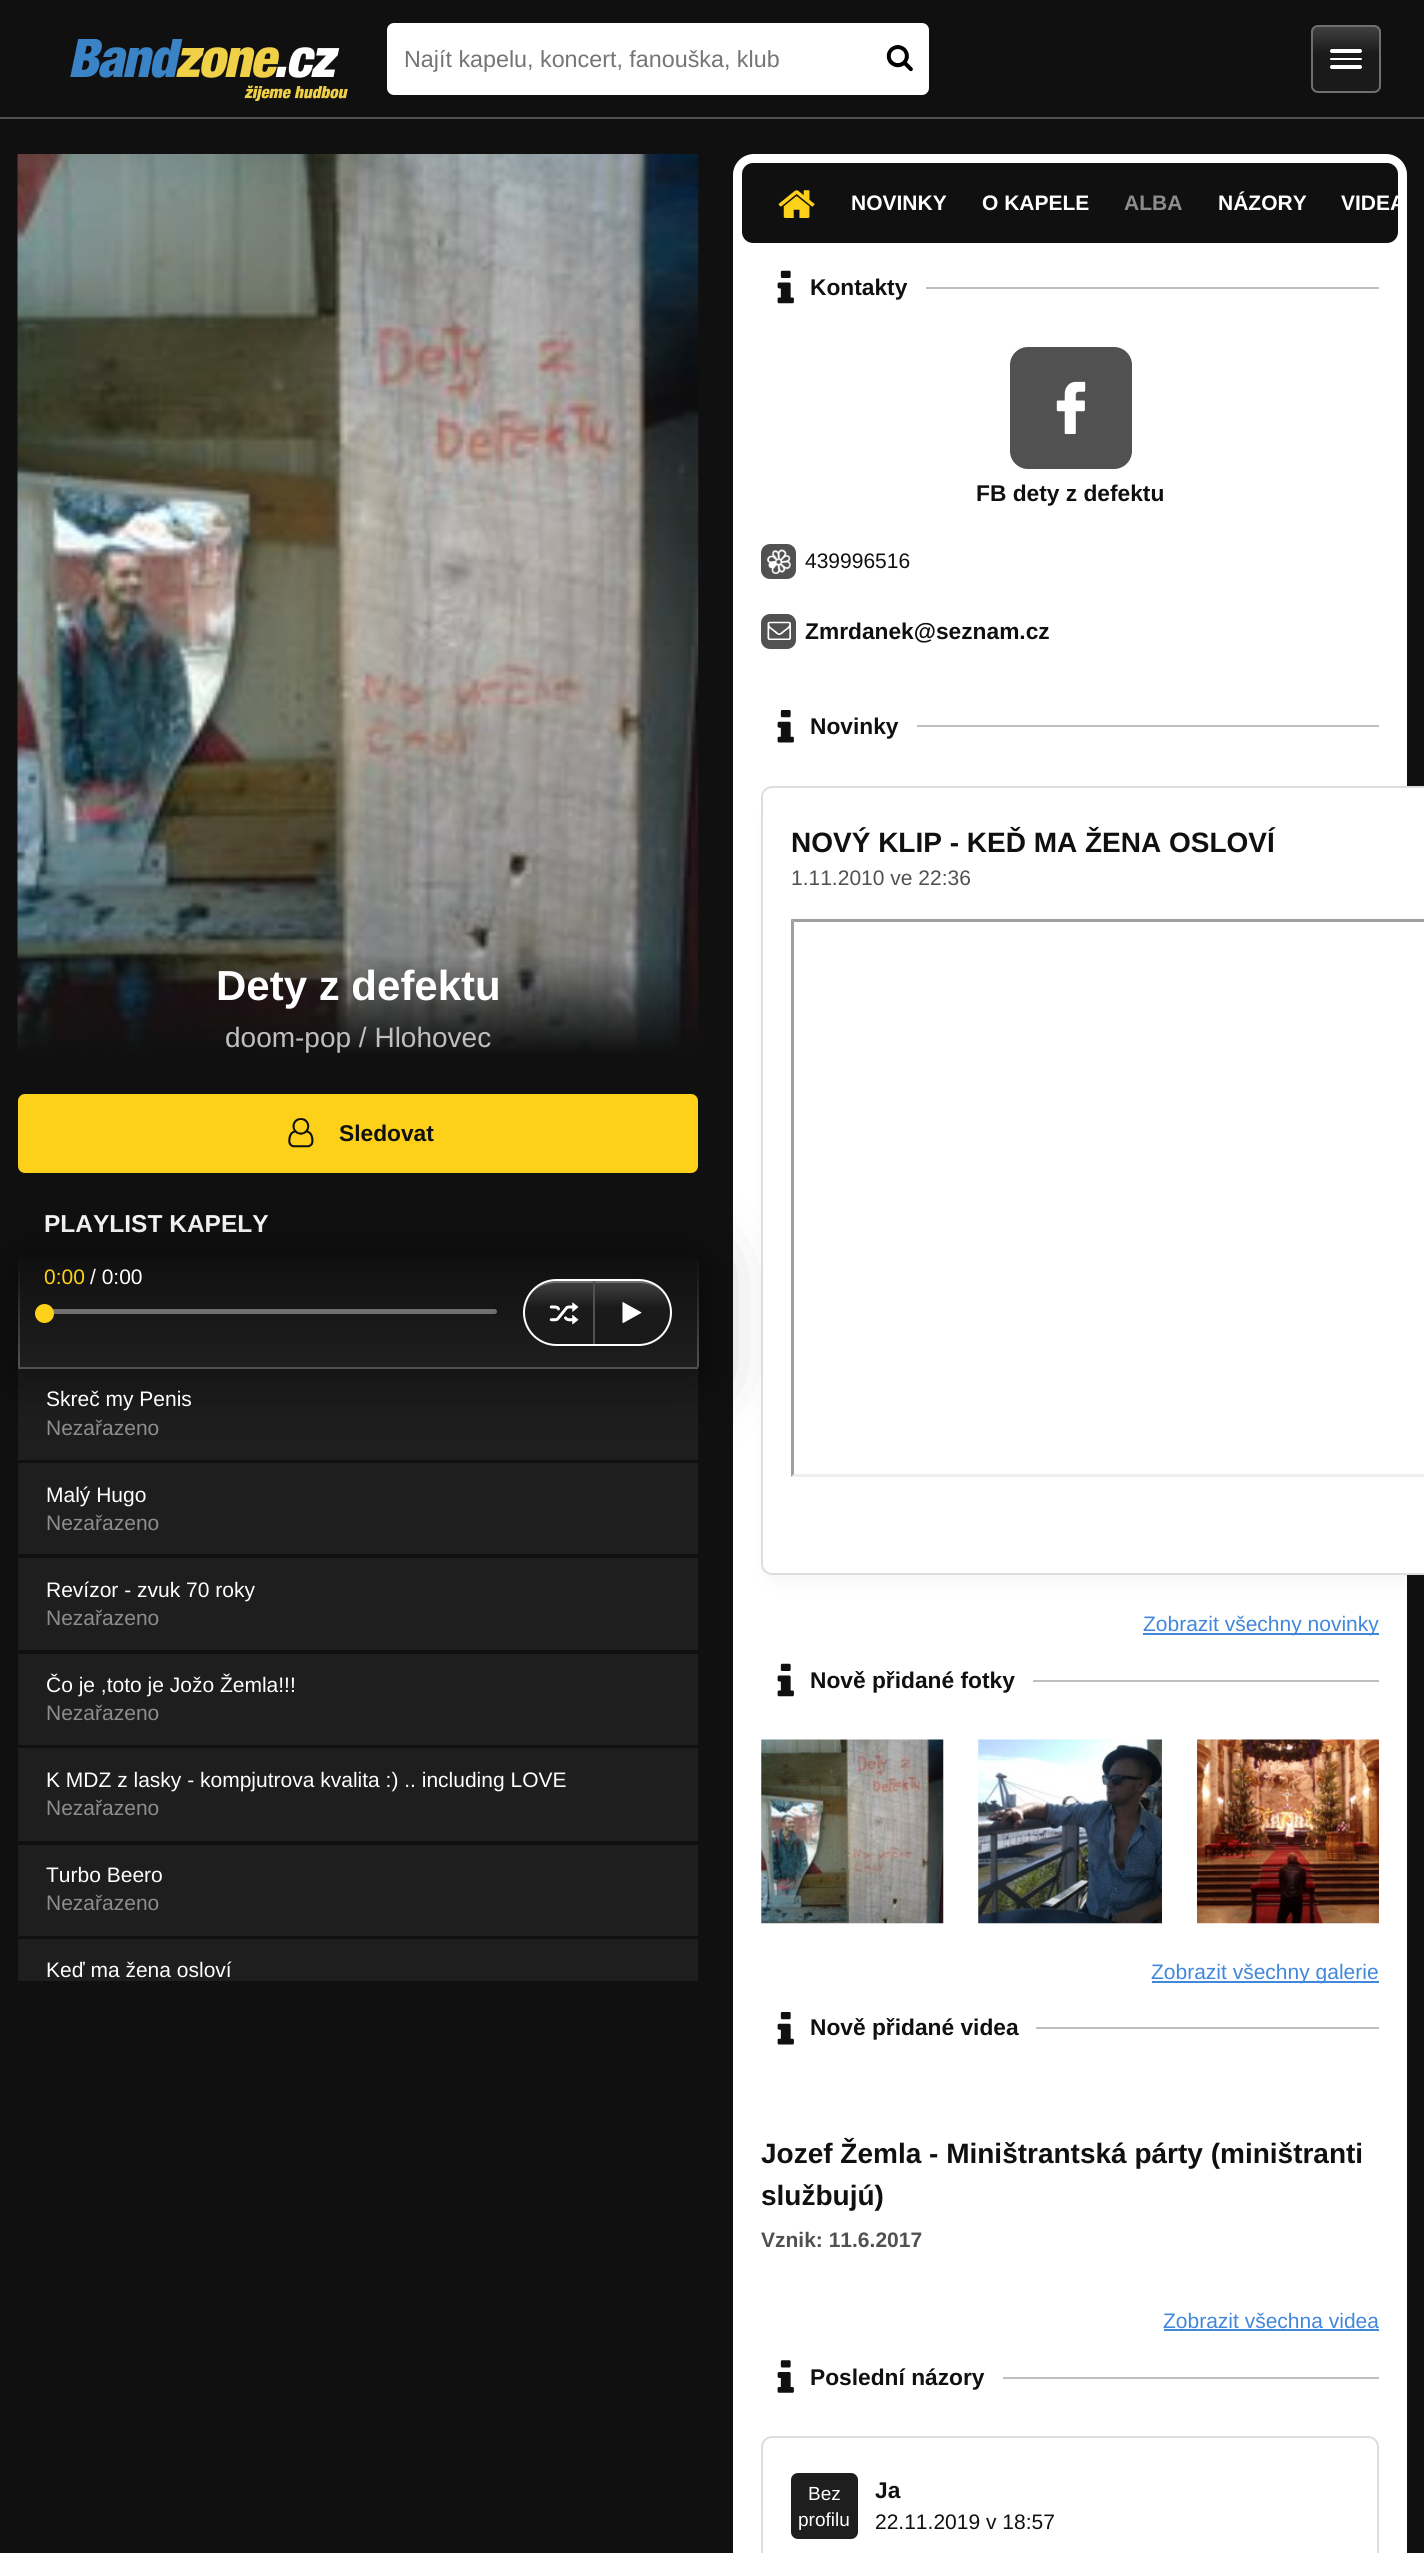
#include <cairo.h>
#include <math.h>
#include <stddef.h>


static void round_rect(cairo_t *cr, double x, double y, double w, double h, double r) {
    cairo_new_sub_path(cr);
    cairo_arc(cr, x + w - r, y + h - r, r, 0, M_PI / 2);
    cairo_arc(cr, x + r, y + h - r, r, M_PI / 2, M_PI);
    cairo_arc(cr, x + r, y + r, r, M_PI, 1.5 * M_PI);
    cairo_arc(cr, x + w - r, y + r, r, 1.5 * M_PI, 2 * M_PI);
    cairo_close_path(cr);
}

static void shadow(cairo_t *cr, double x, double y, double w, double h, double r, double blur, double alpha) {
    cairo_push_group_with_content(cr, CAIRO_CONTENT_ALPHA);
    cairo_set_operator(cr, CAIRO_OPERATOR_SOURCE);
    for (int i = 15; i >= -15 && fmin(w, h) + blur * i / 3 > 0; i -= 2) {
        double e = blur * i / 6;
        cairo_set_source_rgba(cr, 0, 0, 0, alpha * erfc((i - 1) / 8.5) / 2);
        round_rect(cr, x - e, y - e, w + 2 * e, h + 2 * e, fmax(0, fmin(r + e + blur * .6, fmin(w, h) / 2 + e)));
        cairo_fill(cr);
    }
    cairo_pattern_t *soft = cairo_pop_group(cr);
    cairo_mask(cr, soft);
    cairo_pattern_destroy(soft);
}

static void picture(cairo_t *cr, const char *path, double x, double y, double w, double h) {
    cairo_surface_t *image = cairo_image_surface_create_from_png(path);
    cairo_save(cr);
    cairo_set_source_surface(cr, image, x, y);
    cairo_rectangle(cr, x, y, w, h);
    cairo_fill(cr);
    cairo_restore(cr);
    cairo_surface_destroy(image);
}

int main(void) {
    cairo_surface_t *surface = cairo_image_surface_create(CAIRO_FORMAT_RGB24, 1424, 2553);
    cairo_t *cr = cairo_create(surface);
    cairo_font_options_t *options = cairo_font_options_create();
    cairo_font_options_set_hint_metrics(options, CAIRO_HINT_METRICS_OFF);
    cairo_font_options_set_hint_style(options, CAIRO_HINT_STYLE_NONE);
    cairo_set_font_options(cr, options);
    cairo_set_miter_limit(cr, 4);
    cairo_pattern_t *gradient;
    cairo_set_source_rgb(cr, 0.063, 0.063, 0.063);
    cairo_paint(cr);
    cairo_set_source_rgb(cr, 0.318, 0.318, 0.318);
    cairo_rectangle(cr, 0, 117, 1424, 2);
    cairo_fill(cr);
    picture(cr, "img1.png", 70, 39, 278, 62);
    cairo_set_source_rgb(cr, 1, 1, 1);
    round_rect(cr, 387, 23, 542, 72, 7);
    cairo_fill(cr);
    cairo_select_font_face(cr, "Liberation Sans", CAIRO_FONT_SLANT_NORMAL, CAIRO_FONT_WEIGHT_NORMAL);
    cairo_set_font_size(cr, 23.3);
    cairo_set_source_rgb(cr, 0.459, 0.459, 0.459);
    cairo_move_to(cr, 404, 67);
    cairo_show_text(cr, "Najít kapelu, koncert, fanouška, klub");
    picture(cr, "img2.png", 886, 45, 27, 27);
    cairo_save(cr);
    round_rect(cr, 1311, 25, 70, 68, 7);
    cairo_clip(cr);
    gradient = cairo_pattern_create_linear(1346, 26, 1346, 91);
    cairo_pattern_add_color_stop_rgba(gradient, 0, 0.259, 0.259, 0.259, 1);
    cairo_pattern_add_color_stop_rgba(gradient, 0.42, 0.102, 0.102, 0.102, 1);
    cairo_set_source(cr, gradient);
    cairo_pattern_destroy(gradient);
    cairo_rectangle(cr, 1311, 26, 70, 65);
    cairo_fill(cr);
    cairo_restore(cr);
    round_rect(cr, 1312, 26, 68, 66, 6);
    cairo_set_source_rgb(cr, 0.435, 0.435, 0.435);
    cairo_stroke(cr);
    cairo_set_source_rgb(cr, 1, 1, 1);
    round_rect(cr, 1330, 49, 32, 4, 2);
    cairo_fill(cr);
    round_rect(cr, 1330, 58, 32, 2, 1);
    cairo_fill(cr);
    round_rect(cr, 1330, 65, 32, 4, 2);
    cairo_fill(cr);
    picture(cr, "img3.png", 17, 154, 682, 899);
    gradient = cairo_pattern_create_linear(358, 954, 358, 1059);
    cairo_pattern_add_color_stop_rgba(gradient, 0, 0.063, 0.063, 0.063, 0);
    cairo_pattern_add_color_stop_rgba(gradient, 0.95, 0.063, 0.063, 0.063, 1);
    cairo_set_source(cr, gradient);
    cairo_pattern_destroy(gradient);
    cairo_rectangle(cr, 17, 956, 682, 97);
    cairo_fill(cr);
    cairo_select_font_face(cr, "Liberation Sans", CAIRO_FONT_SLANT_NORMAL, CAIRO_FONT_WEIGHT_BOLD);
    cairo_set_font_size(cr, 42);
    cairo_set_source_rgb(cr, 1, 1, 1);
    cairo_move_to(cr, 216, 1000);
    cairo_show_text(cr, "Dety z defektu");
    cairo_select_font_face(cr, "Liberation Sans", CAIRO_FONT_SLANT_NORMAL, CAIRO_FONT_WEIGHT_NORMAL);
    cairo_set_font_size(cr, 28);
    cairo_set_source_rgb(cr, 0.749, 0.749, 0.749);
    cairo_move_to(cr, 225, 1047);
    cairo_show_text(cr, "doom-pop / Hlohovec");
    cairo_set_source_rgb(cr, 0.992, 0.82, 0.098);
    round_rect(cr, 19, 1095, 678, 77, 6);
    cairo_fill_preserve(cr);
    cairo_stroke(cr);
    picture(cr, "img4.png", 288, 1118, 26, 30);
    cairo_select_font_face(cr, "Liberation Sans", CAIRO_FONT_SLANT_NORMAL, CAIRO_FONT_WEIGHT_BOLD);
    cairo_set_font_size(cr, 22.75);
    cairo_set_source_rgb(cr, 0.063, 0.063, 0.063);
    cairo_move_to(cr, 339, 1141);
    cairo_show_text(cr, "Sledovat");
    cairo_set_font_size(cr, 24.5);
    cairo_set_source_rgb(cr, 1, 1, 1);
    cairo_move_to(cr, 44, 1232);
    cairo_show_text(cr, "PLAYLIST KAPELY");
    cairo_set_source_rgb(cr, 0.118, 0.118, 0.118);
    cairo_rectangle(cr, 18, 1369, 680, 91);
    cairo_fill(cr);
    cairo_rectangle(cr, 18, 1463, 680, 91);
    cairo_fill(cr);
    cairo_set_source_rgb(cr, 1, 1, 1);
    round_rect(cr, 733, 154, 674, 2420, 21);
    cairo_fill(cr);
    cairo_set_source_rgb(cr, 0, 0, 0);
    shadow(cr, 18, 1265, 680, 111, 0, 35, 0.5);
    gradient = cairo_pattern_create_linear(358, 1258, 358, 1367);
    cairo_pattern_add_color_stop_rgba(gradient, 0, 0.063, 0.063, 0.063, 1);
    cairo_pattern_add_color_stop_rgba(gradient, 1, 0.118, 0.118, 0.118, 1);
    cairo_set_source(cr, gradient);
    cairo_pattern_destroy(gradient);
    cairo_rectangle(cr, 20, 1258, 677, 109);
    cairo_fill(cr);
    cairo_set_source_rgb(cr, 0.318, 0.318, 0.318);
    cairo_rectangle(cr, 18, 1367, 680, 2);
    cairo_fill(cr);
    gradient = cairo_pattern_create_linear(18, 1258, 18, 1367);
    cairo_pattern_add_color_stop_rgba(gradient, 0, 0.063, 0.063, 0.063, 1);
    cairo_pattern_add_color_stop_rgba(gradient, 1, 0.318, 0.318, 0.318, 1);
    cairo_set_source(cr, gradient);
    cairo_pattern_destroy(gradient);
    cairo_rectangle(cr, 18, 1258, 2, 109);
    cairo_fill(cr);
    cairo_set_source_rgb(cr, 0.435, 0.435, 0.435);
    round_rect(cr, 44, 1309, 453, 5, 2.5);
    cairo_fill(cr);
    cairo_select_font_face(cr, "Liberation Sans", CAIRO_FONT_SLANT_NORMAL, CAIRO_FONT_WEIGHT_NORMAL);
    cairo_set_font_size(cr, 21);
    cairo_set_source_rgb(cr, 0.992, 0.82, 0.098);
    cairo_move_to(cr, 44, 1284);
    cairo_show_text(cr, "0:00");
    cairo_set_source_rgb(cr, 1, 1, 1);
    cairo_move_to(cr, 90, 1284);
    cairo_show_text(cr, "/ 0:00");
    cairo_set_source_rgb(cr, 0.992, 0.82, 0.098);
    cairo_new_path(cr);
    cairo_arc(cr, 44.5, 1313.5, 9.5, 0, 2 * M_PI);
    cairo_fill(cr);
    gradient = cairo_pattern_create_linear(697, 1258, 697, 1367);
    cairo_pattern_add_color_stop_rgba(gradient, 0, 0.063, 0.063, 0.063, 1);
    cairo_pattern_add_color_stop_rgba(gradient, 1, 0.318, 0.318, 0.318, 1);
    cairo_set_source(cr, gradient);
    cairo_pattern_destroy(gradient);
    cairo_rectangle(cr, 697, 1258, 2, 109);
    cairo_fill(cr);
    cairo_save(cr);
    round_rect(cr, 523, 1279, 149, 67, 33.5);
    cairo_clip(cr);
    gradient = cairo_pattern_create_linear(598, 1281, 598, 1344);
    cairo_pattern_add_color_stop_rgba(gradient, 0, 0.259, 0.259, 0.259, 1);
    cairo_pattern_add_color_stop_rgba(gradient, 0.42, 0.102, 0.102, 0.102, 1);
    cairo_set_source(cr, gradient);
    cairo_pattern_destroy(gradient);
    cairo_rectangle(cr, 523, 1281, 149, 63);
    cairo_fill(cr);
    cairo_restore(cr);
    cairo_set_source_rgba(cr, 1, 1, 1, 0.25);
    cairo_new_path(cr);
    cairo_move_to(cr, 556, 1283);
    cairo_line_to(cr, 639, 1283);
    cairo_curve_to(cr, 648, 1283, 656, 1286, 662, 1291);
    cairo_curve_to(cr, 656, 1285, 648, 1281, 638, 1281);
    cairo_line_to(cr, 556, 1281);
    cairo_curve_to(cr, 546, 1281, 537, 1286, 531, 1294);
    cairo_curve_to(cr, 537, 1287, 546, 1283, 556, 1283);
    cairo_close_path(cr);
    cairo_fill(cr);
    round_rect(cr, 524, 1280, 147, 65, 32.5);
    cairo_set_source_rgb(cr, 1, 1, 1);
    cairo_stroke(cr);
    cairo_set_source_rgb(cr, 0.318, 0.318, 0.318);
    cairo_rectangle(cr, 593, 1281, 2, 63);
    cairo_fill(cr);
    picture(cr, "img5.png", 549, 1302, 30, 23);
    picture(cr, "img6.png", 622, 1302, 20, 21);
    cairo_set_source_rgb(cr, 1, 1, 1);
    cairo_move_to(cr, 46, 1406);
    cairo_show_text(cr, "Skreč my Penis");
    cairo_set_source_rgb(cr, 0.553, 0.553, 0.553);
    cairo_move_to(cr, 46, 1435);
    cairo_show_text(cr, "Nezařazeno");
    cairo_set_source_rgb(cr, 1, 1, 1);
    cairo_move_to(cr, 46, 1502);
    cairo_show_text(cr, "Malý Hugo");
    cairo_set_source_rgb(cr, 0.553, 0.553, 0.553);
    cairo_move_to(cr, 46, 1530);
    cairo_show_text(cr, "Nezařazeno");
    cairo_set_source_rgb(cr, 0.118, 0.118, 0.118);
    cairo_rectangle(cr, 18, 1558, 680, 92);
    cairo_fill(cr);
    cairo_set_source_rgb(cr, 1, 1, 1);
    cairo_move_to(cr, 46, 1597);
    cairo_show_text(cr, "Revízor - zvuk 70 roky");
    cairo_set_source_rgb(cr, 0.553, 0.553, 0.553);
    cairo_move_to(cr, 46, 1625);
    cairo_show_text(cr, "Nezařazeno");
    cairo_set_source_rgb(cr, 0.118, 0.118, 0.118);
    cairo_rectangle(cr, 18, 1654, 680, 91);
    cairo_fill(cr);
    cairo_set_source_rgb(cr, 1, 1, 1);
    cairo_move_to(cr, 46, 1692);
    cairo_show_text(cr, "Čo je ,toto je Jožo Žemla!!!");
    cairo_set_source_rgb(cr, 0.553, 0.553, 0.553);
    cairo_move_to(cr, 46, 1720);
    cairo_show_text(cr, "Nezařazeno");
    cairo_set_source_rgb(cr, 0.118, 0.118, 0.118);
    cairo_rectangle(cr, 18, 1748, 680, 93);
    cairo_fill(cr);
    cairo_set_source_rgb(cr, 1, 1, 1);
    cairo_move_to(cr, 46, 1787);
    cairo_show_text(cr, "K MDZ z lasky - kompjutrova kvalita :) .. including LOVE");
    cairo_set_source_rgb(cr, 0.553, 0.553, 0.553);
    cairo_move_to(cr, 46, 1815);
    cairo_show_text(cr, "Nezařazeno");
    cairo_set_source_rgb(cr, 0.118, 0.118, 0.118);
    cairo_rectangle(cr, 18, 1845, 680, 91);
    cairo_fill(cr);
    cairo_set_source_rgb(cr, 1, 1, 1);
    cairo_move_to(cr, 46, 1882);
    cairo_show_text(cr, "Turbo Beero");
    cairo_set_source_rgb(cr, 0.553, 0.553, 0.553);
    cairo_move_to(cr, 46, 1910);
    cairo_show_text(cr, "Nezařazeno");
    cairo_set_source_rgb(cr, 0.118, 0.118, 0.118);
    cairo_rectangle(cr, 18, 1939, 680, 42);
    cairo_fill(cr);
    cairo_set_source_rgb(cr, 1, 1, 1);
    cairo_move_to(cr, 46, 1977);
    cairo_show_text(cr, "Keď ma žena osloví");
    cairo_set_source_rgb(cr, 0.063, 0.063, 0.063);
    round_rect(cr, 742, 163, 656, 80, 11);
    cairo_fill(cr);
    picture(cr, "img7.png", 778, 190, 37, 28);
    cairo_select_font_face(cr, "Liberation Sans", CAIRO_FONT_SLANT_NORMAL, CAIRO_FONT_WEIGHT_BOLD);
    cairo_set_source_rgb(cr, 1, 1, 1);
    cairo_move_to(cr, 851, 210);
    cairo_show_text(cr, "NOVINKY");
    cairo_move_to(cr, 982, 210);
    cairo_show_text(cr, "O KAPELE");
    cairo_set_source_rgb(cr, 0.553, 0.553, 0.553);
    cairo_move_to(cr, 1124, 210);
    cairo_show_text(cr, "ALBA");
    cairo_set_source_rgb(cr, 1, 1, 1);
    cairo_move_to(cr, 1218, 210);
    cairo_show_text(cr, "NÁZORY");
    cairo_save(cr);
    round_rect(cr, 742, 163, 656, 80, 11);
    cairo_clip(cr);
    cairo_move_to(cr, 1341, 210);
    cairo_show_text(cr, "VIDEA");
    cairo_restore(cr);
    picture(cr, "img8.png", 777, 270, 17, 34);
    cairo_set_font_size(cr, 22.75);
    cairo_set_source_rgb(cr, 0.063, 0.063, 0.063);
    cairo_move_to(cr, 810, 295);
    cairo_show_text(cr, "Kontakty");
    cairo_set_source_rgb(cr, 0.749, 0.749, 0.749);
    cairo_rectangle(cr, 926, 287, 453, 2);
    cairo_fill(cr);
    cairo_set_source_rgb(cr, 0.318, 0.318, 0.318);
    round_rect(cr, 1010, 347, 122, 122, 18);
    cairo_fill(cr);
    picture(cr, "img9.png", 1056, 381, 30, 53);
    cairo_set_source_rgb(cr, 0.063, 0.063, 0.063);
    cairo_move_to(cr, 976, 501);
    cairo_show_text(cr, "FB dety z defektu");
    cairo_set_source_rgb(cr, 0.318, 0.318, 0.318);
    round_rect(cr, 761, 544, 35, 35, 9);
    cairo_fill(cr);
    picture(cr, "img10.png", 766, 549, 25, 25);
    cairo_select_font_face(cr, "Liberation Sans", CAIRO_FONT_SLANT_NORMAL, CAIRO_FONT_WEIGHT_NORMAL);
    cairo_set_font_size(cr, 21);
    cairo_set_source_rgb(cr, 0.063, 0.063, 0.063);
    cairo_move_to(cr, 805, 568);
    cairo_show_text(cr, "439996516");
    cairo_set_source_rgb(cr, 0.318, 0.318, 0.318);
    round_rect(cr, 761, 614, 35, 35, 9);
    cairo_fill(cr);
    picture(cr, "img11.png", 767, 621, 24, 19);
    cairo_select_font_face(cr, "Liberation Sans", CAIRO_FONT_SLANT_NORMAL, CAIRO_FONT_WEIGHT_BOLD);
    cairo_set_font_size(cr, 22.75);
    cairo_set_source_rgb(cr, 0.063, 0.063, 0.063);
    cairo_move_to(cr, 805, 639);
    cairo_show_text(cr, "Zmrdanek@seznam.cz");
    picture(cr, "img12.png", 777, 710, 17, 33);
    cairo_move_to(cr, 810, 734);
    cairo_show_text(cr, "Novinky");
    cairo_set_source_rgb(cr, 0.749, 0.749, 0.749);
    cairo_rectangle(cr, 917, 725, 462, 2);
    cairo_fill(cr);
    cairo_set_source_rgb(cr, 0, 0, 0);
    shadow(cr, 779, 816, 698, 754, 0, 17.5, 0.08);
    cairo_set_source_rgb(cr, 1, 1, 1);
    cairo_new_path(cr);
    cairo_move_to(cr, 772, 786);
    cairo_line_to(cr, 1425, 786);
    cairo_line_to(cr, 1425, 1575);
    cairo_line_to(cr, 772, 1575);
    cairo_curve_to(cr, 766, 1575, 761, 1570, 761, 1564);
    cairo_line_to(cr, 761, 797);
    cairo_curve_to(cr, 761, 791, 766, 786, 772, 786);
    cairo_close_path(cr);
    cairo_fill(cr);
    round_rect(cr, 762, 787, 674, 787, 10);
    cairo_set_source_rgb(cr, 0.867, 0.867, 0.867);
    cairo_stroke(cr);
    cairo_set_font_size(cr, 28);
    cairo_set_source_rgb(cr, 0.063, 0.063, 0.063);
    cairo_move_to(cr, 791, 852);
    cairo_show_text(cr, "NOVÝ KLIP - KEĎ MA ŽENA OSLOVÍ");
    cairo_select_font_face(cr, "Liberation Sans", CAIRO_FONT_SLANT_NORMAL, CAIRO_FONT_WEIGHT_NORMAL);
    cairo_set_font_size(cr, 21);
    cairo_set_source_rgb(cr, 0.318, 0.318, 0.318);
    cairo_move_to(cr, 791, 885);
    cairo_show_text(cr, "1.11.2010 ve 22:36");
    cairo_set_source_rgb(cr, 0.624, 0.624, 0.624);
    cairo_new_path(cr);
    cairo_move_to(cr, 791, 919);
    cairo_line_to(cr, 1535, 919);
    cairo_line_to(cr, 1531, 922);
    cairo_line_to(cr, 794, 922);
    cairo_close_path(cr);
    cairo_fill(cr);
    cairo_set_source_rgb(cr, 0.933, 0.933, 0.933);
    cairo_new_path(cr);
    cairo_move_to(cr, 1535, 1477);
    cairo_line_to(cr, 791, 1477);
    cairo_line_to(cr, 794, 1474);
    cairo_line_to(cr, 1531, 1474);
    cairo_close_path(cr);
    cairo_fill(cr);
    cairo_set_source_rgb(cr, 0.624, 0.624, 0.624);
    cairo_new_path(cr);
    cairo_move_to(cr, 791, 1477);
    cairo_line_to(cr, 791, 919);
    cairo_line_to(cr, 794, 922);
    cairo_line_to(cr, 794, 1474);
    cairo_close_path(cr);
    cairo_fill(cr);
    cairo_set_source_rgb(cr, 0.255, 0.529, 0.855);
    cairo_rectangle(cr, 1143, 1633, 236, 2);
    cairo_fill(cr);
    cairo_move_to(cr, 1143, 1631);
    cairo_show_text(cr, "Zobrazit všechny novinky");
    picture(cr, "img8.png", 777, 1663, 17, 34);
    cairo_select_font_face(cr, "Liberation Sans", CAIRO_FONT_SLANT_NORMAL, CAIRO_FONT_WEIGHT_BOLD);
    cairo_set_font_size(cr, 22.75);
    cairo_set_source_rgb(cr, 0.063, 0.063, 0.063);
    cairo_move_to(cr, 810, 1688);
    cairo_show_text(cr, "Nově přidané fotky");
    cairo_set_source_rgb(cr, 0.749, 0.749, 0.749);
    cairo_rectangle(cr, 1033, 1680, 346, 2);
    cairo_fill(cr);
    picture(cr, "img13.png", 761, 1739, 183, 185);
    picture(cr, "img14.png", 978, 1739, 184, 185);
    picture(cr, "img15.png", 1197, 1739, 182, 185);
    cairo_set_source_rgb(cr, 0.255, 0.529, 0.855);
    cairo_rectangle(cr, 1152, 1981, 227, 2);
    cairo_fill(cr);
    cairo_select_font_face(cr, "Liberation Sans", CAIRO_FONT_SLANT_NORMAL, CAIRO_FONT_WEIGHT_NORMAL);
    cairo_set_font_size(cr, 21);
    cairo_move_to(cr, 1151, 1979);
    cairo_show_text(cr, "Zobrazit všechny galerie");
    picture(cr, "img12.png", 777, 2012, 17, 33);
    cairo_select_font_face(cr, "Liberation Sans", CAIRO_FONT_SLANT_NORMAL, CAIRO_FONT_WEIGHT_BOLD);
    cairo_set_font_size(cr, 22.75);
    cairo_set_source_rgb(cr, 0.063, 0.063, 0.063);
    cairo_move_to(cr, 810, 2035);
    cairo_show_text(cr, "Nově přidané videa");
    cairo_set_source_rgb(cr, 0.749, 0.749, 0.749);
    cairo_rectangle(cr, 1036, 2027, 343, 2);
    cairo_fill(cr);
    cairo_set_font_size(cr, 28);
    cairo_set_source_rgb(cr, 0.063, 0.063, 0.063);
    cairo_move_to(cr, 761, 2163);
    cairo_show_text(cr, "Jozef Žemla - Miništrantská párty (miništranti");
    cairo_move_to(cr, 761, 2205);
    cairo_show_text(cr, "službujú)");
    cairo_set_font_size(cr, 21);
    cairo_set_source_rgb(cr, 0.318, 0.318, 0.318);
    cairo_move_to(cr, 761, 2247);
    cairo_show_text(cr, "Vznik: 11.6.2017");
    cairo_select_font_face(cr, "Liberation Sans", CAIRO_FONT_SLANT_NORMAL, CAIRO_FONT_WEIGHT_NORMAL);
    cairo_set_source_rgb(cr, 0.255, 0.529, 0.855);
    cairo_move_to(cr, 1163, 2328);
    cairo_show_text(cr, "Zobrazit všechna videa");
    cairo_rectangle(cr, 1164, 2329, 215, 2);
    cairo_fill(cr);
    picture(cr, "img16.png", 777, 2360, 17, 33);
    cairo_select_font_face(cr, "Liberation Sans", CAIRO_FONT_SLANT_NORMAL, CAIRO_FONT_WEIGHT_BOLD);
    cairo_set_font_size(cr, 22.75);
    cairo_set_source_rgb(cr, 0.063, 0.063, 0.063);
    cairo_move_to(cr, 810, 2385);
    cairo_show_text(cr, "Poslední názory");
    cairo_set_source_rgb(cr, 0.749, 0.749, 0.749);
    cairo_rectangle(cr, 1003, 2377, 376, 2);
    cairo_fill(cr);
    round_rect(cr, 762, 2437, 616, 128, 10);
    cairo_set_source_rgb(cr, 0.867, 0.867, 0.867);
    cairo_stroke(cr);
    cairo_set_source_rgb(cr, 0.118, 0.118, 0.118);
    round_rect(cr, 791, 2473, 67, 66, 7);
    cairo_fill(cr);
    cairo_select_font_face(cr, "Liberation Sans", CAIRO_FONT_SLANT_NORMAL, CAIRO_FONT_WEIGHT_NORMAL);
    cairo_set_font_size(cr, 19);
    cairo_set_source_rgb(cr, 1, 1, 1);
    cairo_move_to(cr, 808, 2500);
    cairo_show_text(cr, "Bez");
    cairo_move_to(cr, 798, 2526);
    cairo_show_text(cr, "profilu");
    cairo_select_font_face(cr, "Liberation Sans", CAIRO_FONT_SLANT_NORMAL, CAIRO_FONT_WEIGHT_BOLD);
    cairo_set_font_size(cr, 22.75);
    cairo_set_source_rgb(cr, 0.063, 0.063, 0.063);
    cairo_move_to(cr, 875, 2498);
    cairo_show_text(cr, "Ja");
    cairo_select_font_face(cr, "Liberation Sans", CAIRO_FONT_SLANT_NORMAL, CAIRO_FONT_WEIGHT_NORMAL);
    cairo_set_font_size(cr, 21);
    cairo_move_to(cr, 875, 2529);
    cairo_show_text(cr, "22.11.2019 v 18:57");
    cairo_surface_write_to_png(surface, "page.png");
    cairo_font_options_destroy(options);
    cairo_destroy(cr);
    cairo_surface_destroy(surface);
    return 0;
}
